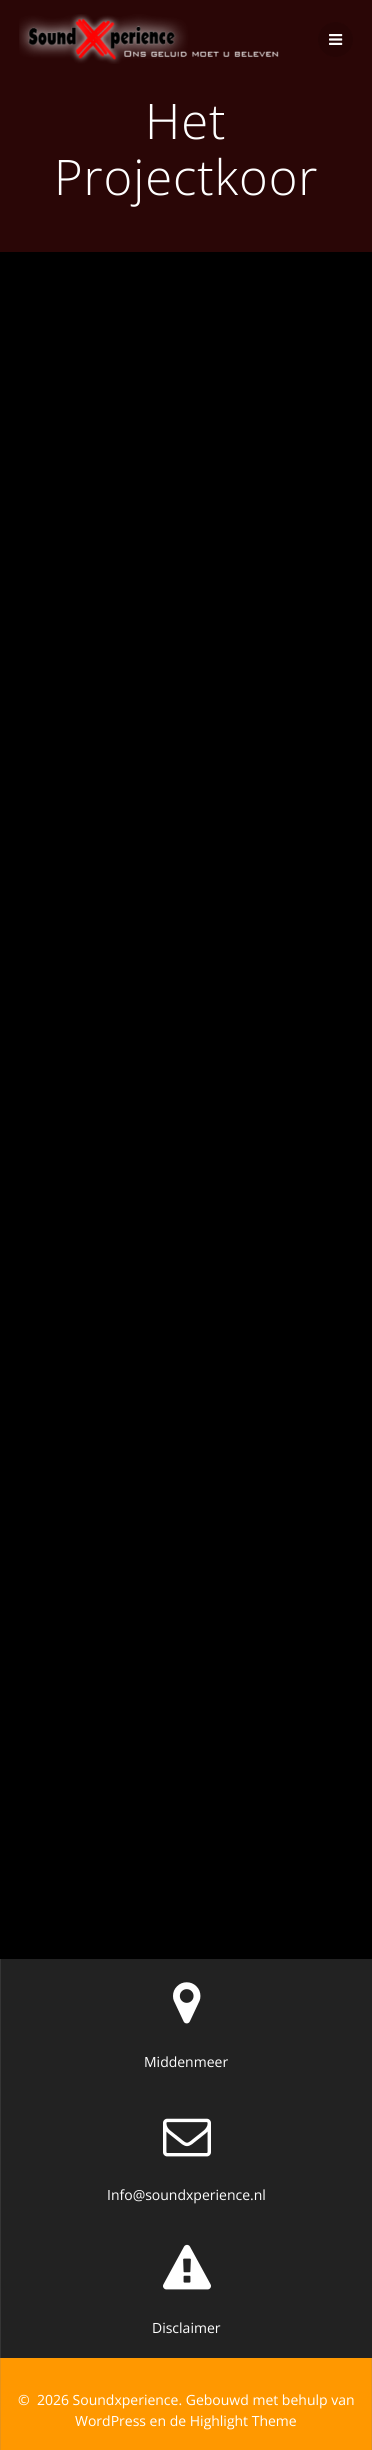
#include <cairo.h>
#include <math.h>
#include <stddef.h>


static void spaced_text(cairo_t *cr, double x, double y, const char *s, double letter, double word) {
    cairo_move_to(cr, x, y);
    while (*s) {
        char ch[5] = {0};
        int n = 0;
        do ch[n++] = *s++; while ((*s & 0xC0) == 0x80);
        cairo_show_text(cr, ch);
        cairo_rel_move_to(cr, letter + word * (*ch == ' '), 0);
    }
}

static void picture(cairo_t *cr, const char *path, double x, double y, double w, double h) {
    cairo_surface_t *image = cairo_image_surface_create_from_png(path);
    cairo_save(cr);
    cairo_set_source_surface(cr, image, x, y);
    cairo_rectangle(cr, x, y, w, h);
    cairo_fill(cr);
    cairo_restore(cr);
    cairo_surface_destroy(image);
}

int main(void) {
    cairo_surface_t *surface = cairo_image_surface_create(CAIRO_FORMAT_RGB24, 372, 2450);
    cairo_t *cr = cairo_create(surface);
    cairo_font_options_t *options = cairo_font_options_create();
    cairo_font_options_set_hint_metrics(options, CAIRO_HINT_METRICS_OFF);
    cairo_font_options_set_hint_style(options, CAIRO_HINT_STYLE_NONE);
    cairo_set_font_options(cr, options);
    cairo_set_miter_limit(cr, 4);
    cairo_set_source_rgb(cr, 0, 0, 0);
    cairo_paint(cr);
    cairo_set_source_rgb(cr, 0.165, 0.024, 0.024);
    cairo_rectangle(cr, 0, 0, 372, 252);
    cairo_fill(cr);
    picture(cr, "img1.png", 19, 14, 260, 50);
    cairo_set_source_rgb(cr, 0.149, 0.02, 0.02);
    cairo_arc(cr, 335.5, 39.5, 17.5, 0, 2 * M_PI);
    cairo_fill(cr);
    picture(cr, "img2.png", 329, 34, 14, 11);
    cairo_select_font_face(cr, "Open Sans Light", CAIRO_FONT_SLANT_NORMAL, CAIRO_FONT_WEIGHT_NORMAL);
    cairo_set_font_size(cr, 49);
    cairo_set_source_rgb(cr, 1, 1, 1);
    spaced_text(cr, 145, 139, "Het", 0.9, 0);
    spaced_text(cr, 54, 195, "Projectkoor", 0.9, 0);
    cairo_set_source_rgb(cr, 0.133, 0.133, 0.133);
    cairo_rectangle(cr, 1, 1959, 371, 399);
    cairo_fill(cr);
    cairo_set_source_rgb(cr, 0.208, 0.208, 0.208);
    cairo_rectangle(cr, 0, 1959, 1, 399);
    cairo_fill(cr);
    picture(cr, "img3.png", 173, 1982, 28, 42);
    cairo_select_font_face(cr, "Open Sans", CAIRO_FONT_SLANT_NORMAL, CAIRO_FONT_WEIGHT_NORMAL);
    cairo_set_font_size(cr, 14);
    cairo_set_source_rgb(cr, 1, 1, 1);
    cairo_move_to(cr, 144, 2067);
    cairo_show_text(cr, "Middenmeer");
    picture(cr, "img4.png", 163, 2118, 48, 39);
    cairo_move_to(cr, 107, 2200);
    cairo_show_text(cr, "Info@soundxperience.nl");
    picture(cr, "img5.png", 163, 2244, 48, 46);
    cairo_move_to(cr, 152, 2333);
    cairo_show_text(cr, "Disclaimer");
    cairo_set_source_rgb(cr, 1, 0.596, 0);
    cairo_rectangle(cr, 1, 2358, 370, 92);
    cairo_fill(cr);
    cairo_set_source_rgb(cr, 0.902, 0.576, 0.102);
    cairo_rectangle(cr, 371, 2358, 1, 92);
    cairo_fill(cr);
    cairo_rectangle(cr, 0, 2358, 1, 92);
    cairo_fill(cr);
    cairo_set_source_rgb(cr, 1, 1, 1);
    cairo_move_to(cr, 18, 2405);
    cairo_show_text(cr, "©  2026 Soundxperience. Gebouwd met behulp van");
    cairo_move_to(cr, 75, 2426);
    cairo_show_text(cr, "WordPress en de Highlight Theme");
    cairo_surface_write_to_png(surface, "page.png");
    cairo_font_options_destroy(options);
    cairo_destroy(cr);
    cairo_surface_destroy(surface);
    return 0;
}
